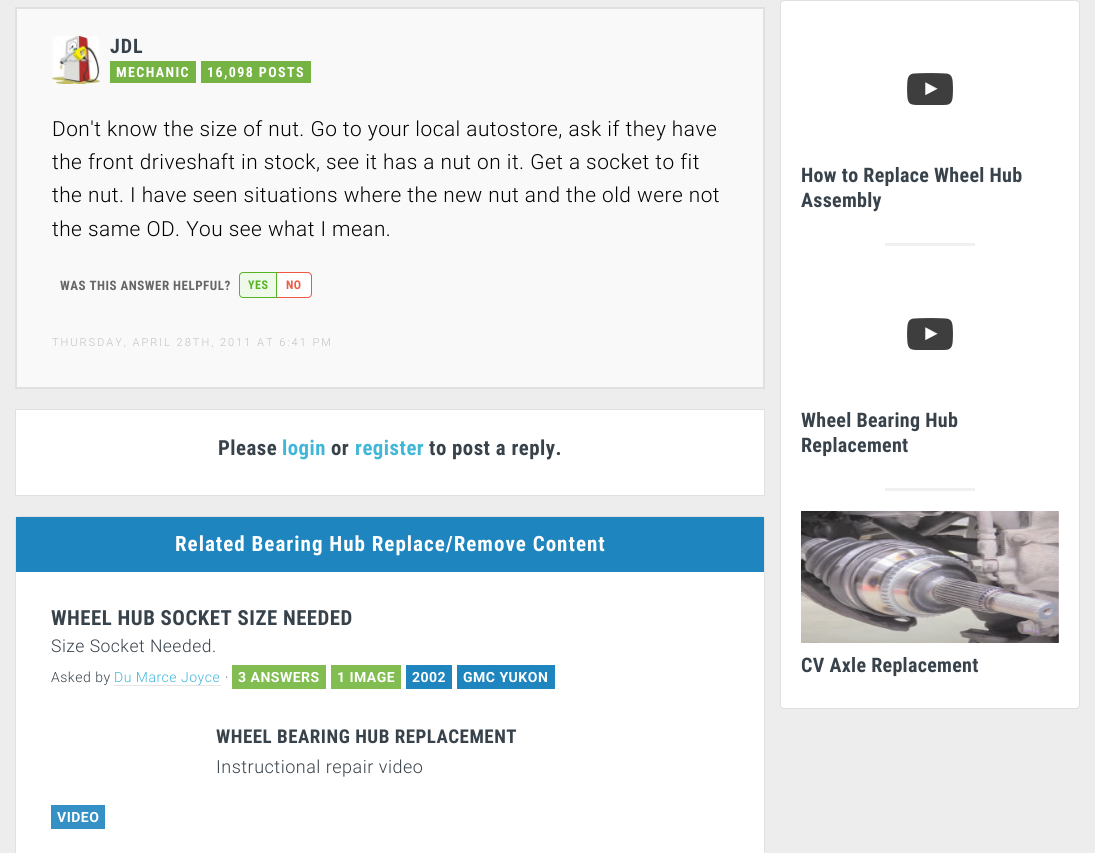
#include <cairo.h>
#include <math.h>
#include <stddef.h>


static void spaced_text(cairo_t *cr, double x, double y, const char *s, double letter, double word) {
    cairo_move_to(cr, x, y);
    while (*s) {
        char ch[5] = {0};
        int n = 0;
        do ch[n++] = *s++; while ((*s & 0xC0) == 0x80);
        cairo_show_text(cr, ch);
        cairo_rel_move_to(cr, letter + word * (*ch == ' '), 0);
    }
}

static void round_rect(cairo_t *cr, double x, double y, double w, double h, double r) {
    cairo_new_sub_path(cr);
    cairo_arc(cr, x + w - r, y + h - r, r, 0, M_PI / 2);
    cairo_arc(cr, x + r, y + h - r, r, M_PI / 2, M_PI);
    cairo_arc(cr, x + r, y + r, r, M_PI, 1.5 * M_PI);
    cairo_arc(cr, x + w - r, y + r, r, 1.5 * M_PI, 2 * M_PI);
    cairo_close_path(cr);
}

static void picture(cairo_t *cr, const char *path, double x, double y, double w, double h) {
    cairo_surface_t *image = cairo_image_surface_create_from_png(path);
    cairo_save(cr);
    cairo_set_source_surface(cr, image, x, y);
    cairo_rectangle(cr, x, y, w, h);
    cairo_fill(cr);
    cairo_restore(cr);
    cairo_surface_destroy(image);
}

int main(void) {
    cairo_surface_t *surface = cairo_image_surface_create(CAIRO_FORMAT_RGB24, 1095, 853);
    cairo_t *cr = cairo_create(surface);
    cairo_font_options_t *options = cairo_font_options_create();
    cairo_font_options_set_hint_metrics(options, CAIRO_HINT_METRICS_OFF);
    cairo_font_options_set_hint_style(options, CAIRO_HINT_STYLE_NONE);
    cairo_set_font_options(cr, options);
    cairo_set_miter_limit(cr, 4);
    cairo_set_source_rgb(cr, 0.929, 0.929, 0.929);
    cairo_paint(cr);
    cairo_set_source_rgb(cr, 0.976, 0.976, 0.976);
    cairo_rectangle(cr, 16, 8, 748, 380);
    cairo_fill_preserve(cr);
    cairo_set_source_rgb(cr, 0.878, 0.878, 0.878);
    cairo_stroke(cr);
    picture(cr, "img1.png", 52, 36, 48, 48);
    cairo_select_font_face(cr, "Roboto Condensed", CAIRO_FONT_SLANT_NORMAL, CAIRO_FONT_WEIGHT_BOLD);
    cairo_set_font_size(cr, 20);
    cairo_set_source_rgb(cr, 0.22, 0.259, 0.294);
    spaced_text(cr, 110, 53, "JDL", 1, 0);
    cairo_set_source_rgb(cr, 0.459, 0.702, 0.263);
    cairo_rectangle(cr, 110, 61, 86, 22);
    cairo_fill(cr);
    cairo_set_font_size(cr, 14);
    cairo_set_source_rgb(cr, 1, 1, 1);
    spaced_text(cr, 116, 77, "MECHANIC", 1.4, 0);
    cairo_set_source_rgb(cr, 0.459, 0.702, 0.263);
    cairo_rectangle(cr, 201, 61, 110, 22);
    cairo_fill(cr);
    cairo_set_source_rgb(cr, 1, 1, 1);
    spaced_text(cr, 207, 77, "16,098 POSTS", 1.4, 0);
    cairo_select_font_face(cr, "Roboto Light", CAIRO_FONT_SLANT_NORMAL, CAIRO_FONT_WEIGHT_NORMAL);
    cairo_set_font_size(cr, 20.8);
    cairo_set_source_rgb(cr, 0, 0, 0);
    spaced_text(cr, 52, 136, "Don't know the size of nut. Go to your local autostore, ask if they have", 0.5, 0);
    spaced_text(cr, 52, 169, "the front driveshaft in stock, see it has a nut on it. Get a socket to fit", 0.5, 0);
    spaced_text(cr, 52, 202, "the nut. I have seen situations where the new nut and the old were not", 0.5, 0);
    spaced_text(cr, 52, 236, "the same OD. You see what I mean.", 0.5, 0);
    cairo_select_font_face(cr, "Roboto Condensed", CAIRO_FONT_SLANT_NORMAL, CAIRO_FONT_WEIGHT_BOLD);
    cairo_set_font_size(cr, 13);
    cairo_set_source_rgb(cr, 0.4, 0.4, 0.4);
    spaced_text(cr, 60, 290, "WAS THIS ANSWER HELPFUL?", 0.5, 0);
    cairo_set_source_rgb(cr, 0.933, 0.973, 0.914);
    cairo_new_path(cr);
    cairo_move_to(cr, 243, 272.5);
    cairo_line_to(cr, 276.5, 272.5);
    cairo_line_to(cr, 276.5, 297.5);
    cairo_line_to(cr, 243, 297.5);
    cairo_curve_to(cr, 241, 297.5, 239.5, 296, 239.5, 294);
    cairo_line_to(cr, 239.5, 276);
    cairo_curve_to(cr, 239.5, 274, 241, 272.5, 243, 272.5);
    cairo_close_path(cr);
    cairo_fill_preserve(cr);
    cairo_set_source_rgb(cr, 0.341, 0.71, 0.141);
    cairo_set_line_width(cr, 1);
    cairo_stroke(cr);
    cairo_set_font_size(cr, 12);
    spaced_text(cr, 248, 289, "YES", 0.5, 0);
    cairo_set_source_rgb(cr, 1, 1, 1);
    cairo_new_path(cr);
    cairo_move_to(cr, 277, 272);
    cairo_line_to(cr, 308, 272);
    cairo_curve_to(cr, 310, 272, 312, 274, 312, 276);
    cairo_line_to(cr, 312, 294);
    cairo_curve_to(cr, 312, 296, 310, 298, 308, 298);
    cairo_line_to(cr, 277, 298);
    cairo_close_path(cr);
    cairo_fill(cr);
    cairo_set_source_rgb(cr, 0.933, 0.349, 0.259);
    cairo_set_fill_rule(cr, CAIRO_FILL_RULE_EVEN_ODD);
    cairo_new_path(cr);
    cairo_move_to(cr, 277, 272);
    cairo_line_to(cr, 308, 272);
    cairo_curve_to(cr, 310, 272, 312, 274, 312, 276);
    cairo_line_to(cr, 312, 294);
    cairo_curve_to(cr, 312, 296, 310, 298, 308, 298);
    cairo_line_to(cr, 277, 298);
    cairo_close_path(cr);
    cairo_move_to(cr, 277, 273);
    cairo_line_to(cr, 308, 273);
    cairo_curve_to(cr, 309.5, 273, 311, 274.5, 311, 276);
    cairo_line_to(cr, 311, 294);
    cairo_curve_to(cr, 311, 295.5, 309.5, 297, 308, 297);
    cairo_line_to(cr, 277, 297);
    cairo_close_path(cr);
    cairo_fill(cr);
    spaced_text(cr, 286, 289, "NO", 0.5, 0);
    cairo_select_font_face(cr, "Roboto Light", CAIRO_FONT_SLANT_NORMAL, CAIRO_FONT_WEIGHT_NORMAL);
    cairo_set_font_size(cr, 11);
    cairo_set_source_rgb(cr, 0.757, 0.757, 0.757);
    spaced_text(cr, 52, 346, "THURSDAY, APRIL 28TH, 2011 AT 6:41 PM", 2, 0);
    cairo_set_source_rgb(cr, 1, 1, 1);
    cairo_rectangle(cr, 15.5, 409.5, 749, 86);
    cairo_fill_preserve(cr);
    cairo_set_source_rgb(cr, 0.878, 0.878, 0.878);
    cairo_stroke(cr);
    cairo_select_font_face(cr, "Roboto Condensed", CAIRO_FONT_SLANT_NORMAL, CAIRO_FONT_WEIGHT_BOLD);
    cairo_set_font_size(cr, 20.8);
    cairo_set_source_rgb(cr, 0.22, 0.259, 0.294);
    spaced_text(cr, 218, 455, "Please", 0.5, 0);
    cairo_set_source_rgb(cr, 0.255, 0.718, 0.847);
    spaced_text(cr, 282, 455, "login", 0.5, 0);
    cairo_set_source_rgb(cr, 0.22, 0.259, 0.294);
    spaced_text(cr, 331, 455, "or", 0.5, 0);
    cairo_set_source_rgb(cr, 0.255, 0.718, 0.847);
    spaced_text(cr, 355, 455, "register", 0.5, 0);
    cairo_set_source_rgb(cr, 0.22, 0.259, 0.294);
    spaced_text(cr, 429, 455, "to post a reply.", 0.5, 0);
    cairo_set_source_rgb(cr, 1, 1, 1);
    round_rect(cr, 15.5, 516.5, 749, 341, 3.5);
    cairo_fill_preserve(cr);
    cairo_set_source_rgb(cr, 0.878, 0.878, 0.878);
    cairo_stroke(cr);
    cairo_set_source_rgb(cr, 0.118, 0.522, 0.749);
    cairo_rectangle(cr, 16, 517, 748, 55);
    cairo_fill(cr);
    cairo_set_font_size(cr, 21);
    cairo_set_source_rgb(cr, 1, 1, 1);
    spaced_text(cr, 175, 551, "Related Bearing Hub Replace/Remove Content", 1, 0);
    cairo_set_font_size(cr, 20.8);
    cairo_set_source_rgb(cr, 0.22, 0.259, 0.294);
    spaced_text(cr, 51, 625, "WHEEL HUB SOCKET SIZE NEEDED", 0.5, 0);
    cairo_select_font_face(cr, "Roboto Light", CAIRO_FONT_SLANT_NORMAL, CAIRO_FONT_WEIGHT_NORMAL);
    cairo_set_font_size(cr, 17.5);
    spaced_text(cr, 51, 652, "Size Socket Needed.", 0.5, 0);
    cairo_set_font_size(cr, 14);
    spaced_text(cr, 51, 682, "Asked by", 0.5, 0);
    cairo_set_source_rgb(cr, 0.255, 0.718, 0.847);
    spaced_text(cr, 114, 682, "Du Marce Joyce", 0.5, 0);
    cairo_set_source_rgb(cr, 0.902, 0.902, 0.902);
    cairo_rectangle(cr, 114, 685, 107, 1);
    cairo_fill(cr);
    cairo_set_source_rgb(cr, 0.22, 0.259, 0.294);
    spaced_text(cr, 225, 682, "·", 0.5, 0);
    cairo_set_source_rgb(cr, 0.506, 0.741, 0.314);
    cairo_rectangle(cr, 232, 665, 94, 24);
    cairo_fill(cr);
    cairo_select_font_face(cr, "Roboto", CAIRO_FONT_SLANT_NORMAL, CAIRO_FONT_WEIGHT_BOLD);
    cairo_set_source_rgb(cr, 1, 1, 1);
    spaced_text(cr, 238, 682, "3 ANSWERS", 0.5, 0);
    cairo_set_source_rgb(cr, 0.506, 0.741, 0.314);
    cairo_rectangle(cr, 331, 665, 70, 24);
    cairo_fill(cr);
    cairo_set_source_rgb(cr, 1, 1, 1);
    spaced_text(cr, 337, 682, "1 IMAGE", 0.5, 0);
    cairo_set_source_rgb(cr, 0.118, 0.522, 0.749);
    cairo_rectangle(cr, 406, 665, 46, 24);
    cairo_fill(cr);
    cairo_set_source_rgb(cr, 1, 1, 1);
    spaced_text(cr, 412, 682, "2002", 0.5, 0);
    cairo_set_source_rgb(cr, 0.118, 0.522, 0.749);
    cairo_rectangle(cr, 457, 665, 98, 24);
    cairo_fill(cr);
    cairo_set_source_rgb(cr, 1, 1, 1);
    spaced_text(cr, 463, 682, "GMC YUKON", 0.5, 0);
    cairo_select_font_face(cr, "Roboto Condensed", CAIRO_FONT_SLANT_NORMAL, CAIRO_FONT_WEIGHT_BOLD);
    cairo_set_font_size(cr, 19);
    cairo_set_source_rgb(cr, 0.22, 0.259, 0.294);
    spaced_text(cr, 216, 743, "WHEEL BEARING HUB REPLACEMENT", 0.5, 0);
    cairo_select_font_face(cr, "Roboto Light", CAIRO_FONT_SLANT_NORMAL, CAIRO_FONT_WEIGHT_NORMAL);
    cairo_set_font_size(cr, 18);
    spaced_text(cr, 216, 773, "Instructional repair video", 0.5, 0);
    cairo_set_source_rgb(cr, 0.208, 0.569, 0.773);
    cairo_rectangle(cr, 51, 805, 54, 24);
    cairo_fill(cr);
    cairo_select_font_face(cr, "Roboto", CAIRO_FONT_SLANT_NORMAL, CAIRO_FONT_WEIGHT_BOLD);
    cairo_set_font_size(cr, 14);
    cairo_set_source_rgb(cr, 1, 1, 1);
    spaced_text(cr, 57, 822, "VIDEO", 0.5, 0);
    round_rect(cr, 780.5, 0.5, 299, 708, 3.5);
    cairo_fill_preserve(cr);
    cairo_set_source_rgb(cr, 0.878, 0.878, 0.878);
    cairo_stroke(cr);
    picture(cr, "img2.png", 907, 73, 46, 32);
    cairo_select_font_face(cr, "Roboto Condensed", CAIRO_FONT_SLANT_NORMAL, CAIRO_FONT_WEIGHT_BOLD);
    cairo_set_font_size(cr, 20);
    cairo_set_source_rgb(cr, 0.22, 0.259, 0.294);
    spaced_text(cr, 801, 182, "How to Replace Wheel Hub", 0.3, 0);
    spaced_text(cr, 801, 207, "Assembly", 0.3, 0);
    cairo_set_source_rgb(cr, 0.941, 0.941, 0.941);
    cairo_rectangle(cr, 885, 243, 90, 3);
    cairo_fill(cr);
    picture(cr, "img2.png", 907, 318, 46, 32);
    cairo_set_source_rgb(cr, 0.22, 0.259, 0.294);
    spaced_text(cr, 801, 427, "Wheel Bearing Hub", 0.3, 0);
    spaced_text(cr, 801, 452, "Replacement", 0.3, 0);
    cairo_set_source_rgb(cr, 0.941, 0.941, 0.941);
    cairo_rectangle(cr, 885, 488, 90, 3);
    cairo_fill(cr);
    picture(cr, "img3.png", 801, 511, 258, 132);
    cairo_set_source_rgb(cr, 0.22, 0.259, 0.294);
    spaced_text(cr, 801, 672, "CV Axle Replacement", 0.3, 0);
    cairo_surface_write_to_png(surface, "page.png");
    cairo_font_options_destroy(options);
    cairo_destroy(cr);
    cairo_surface_destroy(surface);
    return 0;
}
